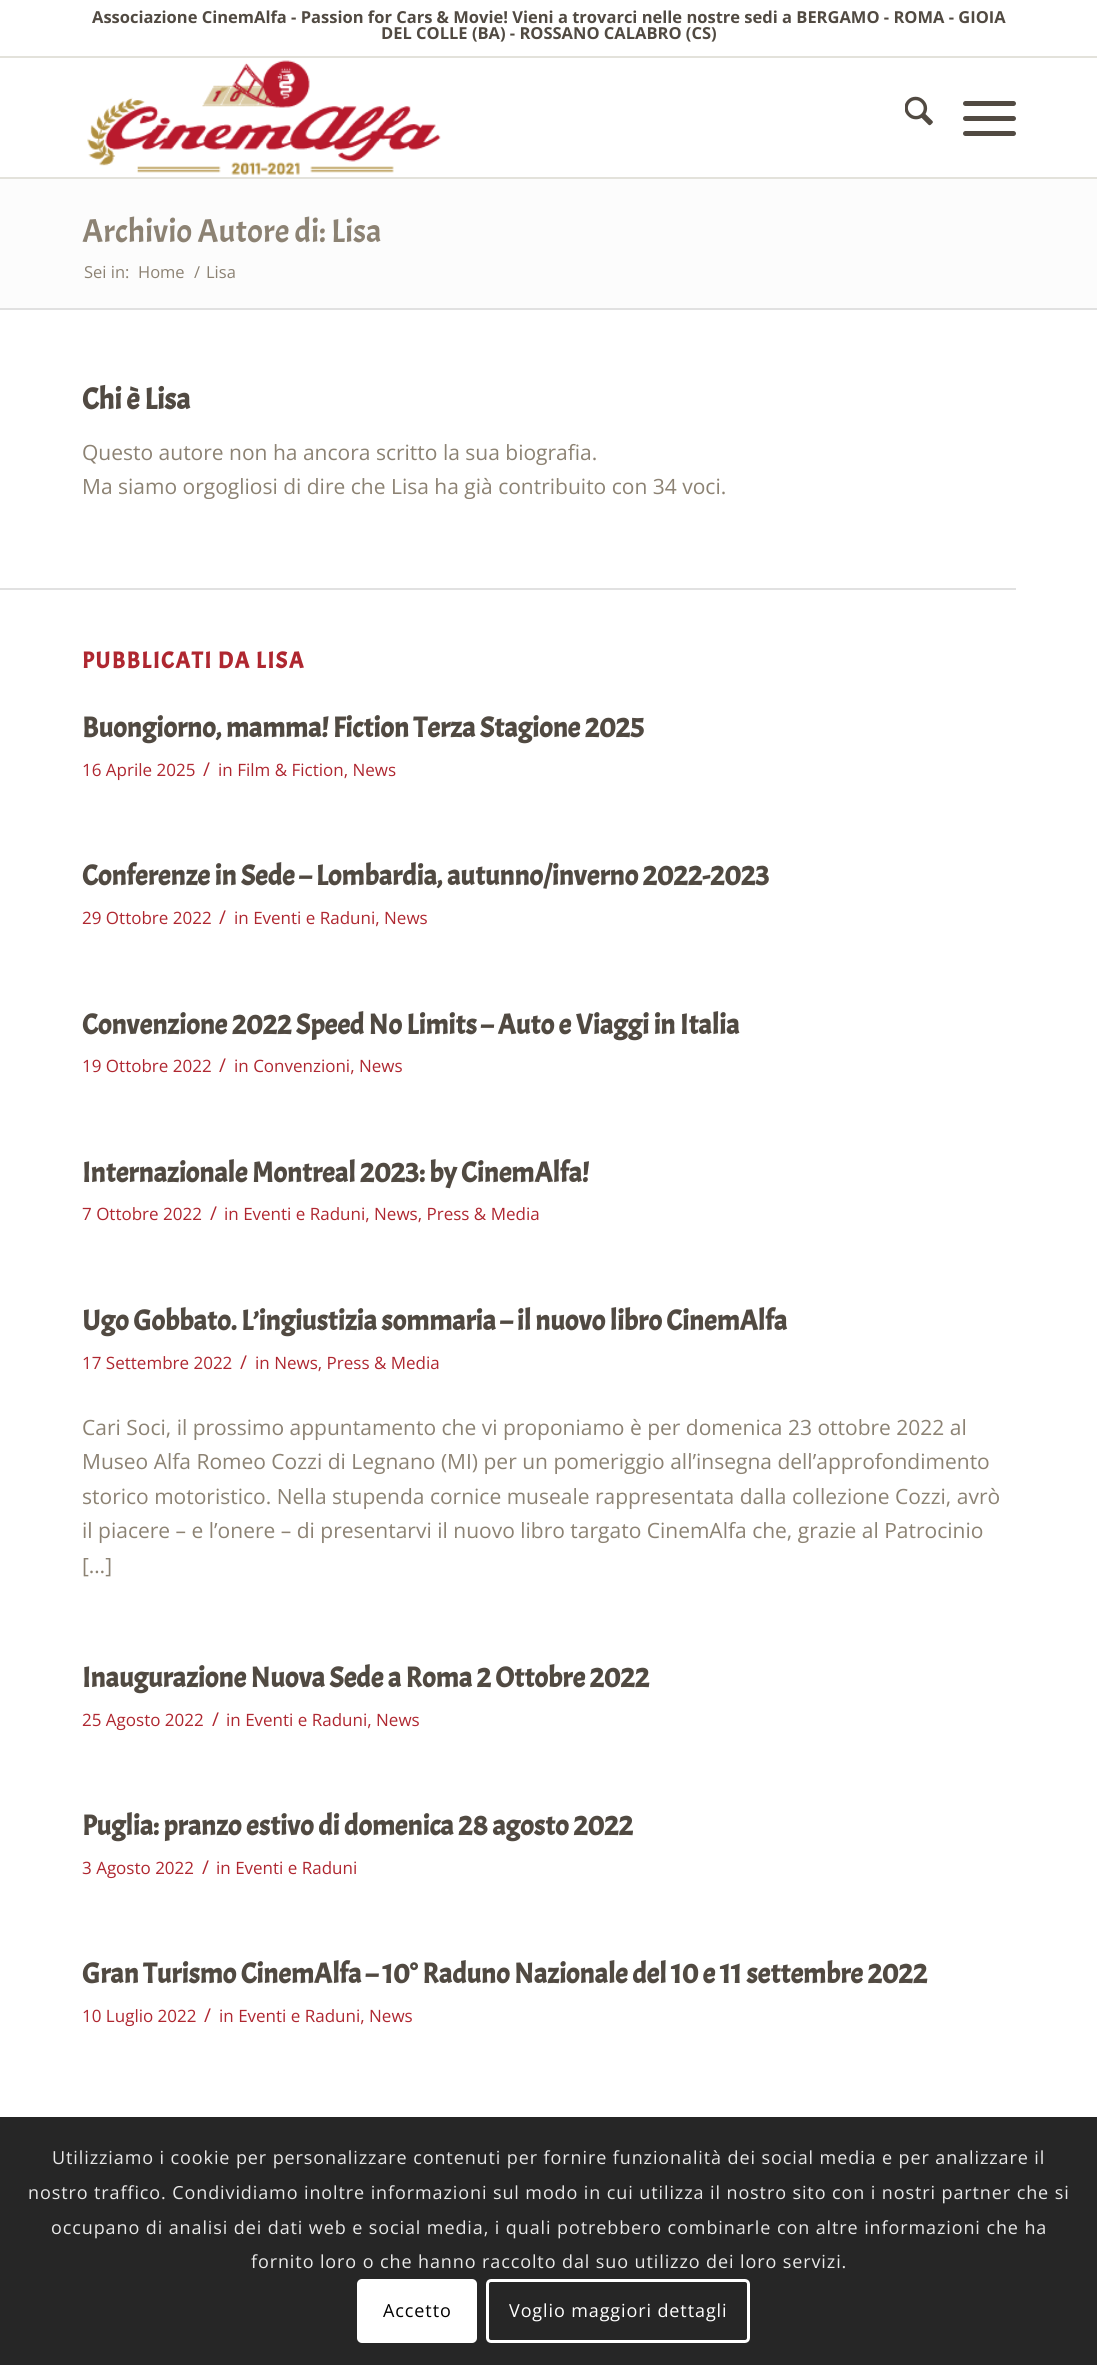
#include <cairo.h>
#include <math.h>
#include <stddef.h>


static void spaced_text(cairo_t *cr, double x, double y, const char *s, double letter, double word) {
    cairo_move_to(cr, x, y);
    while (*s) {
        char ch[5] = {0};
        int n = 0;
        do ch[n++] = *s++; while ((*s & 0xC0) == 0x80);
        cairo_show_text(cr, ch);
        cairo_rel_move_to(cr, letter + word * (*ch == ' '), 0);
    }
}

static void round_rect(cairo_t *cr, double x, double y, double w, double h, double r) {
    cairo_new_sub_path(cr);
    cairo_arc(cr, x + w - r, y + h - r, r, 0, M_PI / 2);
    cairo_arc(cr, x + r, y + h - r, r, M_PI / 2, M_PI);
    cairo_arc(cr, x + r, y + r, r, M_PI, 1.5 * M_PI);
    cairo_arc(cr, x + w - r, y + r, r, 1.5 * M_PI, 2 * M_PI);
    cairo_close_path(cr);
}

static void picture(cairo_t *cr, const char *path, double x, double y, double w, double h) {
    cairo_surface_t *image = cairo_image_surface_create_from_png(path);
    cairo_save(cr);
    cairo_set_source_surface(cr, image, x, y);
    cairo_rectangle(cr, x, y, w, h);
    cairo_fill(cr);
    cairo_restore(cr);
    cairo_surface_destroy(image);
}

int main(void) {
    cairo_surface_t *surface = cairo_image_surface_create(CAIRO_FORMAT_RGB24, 1097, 2365);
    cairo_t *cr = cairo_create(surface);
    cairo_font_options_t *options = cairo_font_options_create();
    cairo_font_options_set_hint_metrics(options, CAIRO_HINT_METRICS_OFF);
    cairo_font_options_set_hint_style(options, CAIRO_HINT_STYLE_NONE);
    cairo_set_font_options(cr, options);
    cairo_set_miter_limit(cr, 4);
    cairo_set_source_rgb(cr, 1, 1, 1);
    cairo_paint(cr);
    cairo_set_source_rgb(cr, 0.89, 0.886, 0.859);
    cairo_rectangle(cr, 0, 56, 1097, 2);
    cairo_fill(cr);
    cairo_select_font_face(cr, "Open Sans", CAIRO_FONT_SLANT_NORMAL, CAIRO_FONT_WEIGHT_BOLD);
    cairo_set_font_size(cr, 16.5);
    cairo_set_source_rgb(cr, 0.318, 0.29, 0.259);
    cairo_move_to(cr, 92, 23);
    cairo_show_text(cr, "Associazione CinemAlfa - Passion for Cars & Movie! Vieni a trovarci nelle nostre sedi a BERGAMO - ROMA - GIOIA");
    cairo_move_to(cr, 381, 39);
    cairo_show_text(cr, "DEL COLLE (BA) - ROSSANO CALABRO (CS)");
    cairo_set_source_rgb(cr, 0.89, 0.886, 0.859);
    cairo_rectangle(cr, 0, 177, 1097, 2);
    cairo_fill(cr);
    picture(cr, "img1.png", 87, 60, 354, 115);
    picture(cr, "img2.png", 905, 96, 28, 30);
    cairo_set_source_rgb(cr, 0.318, 0.29, 0.259);
    round_rect(cr, 963, 116, 53, 5, 2.5);
    cairo_fill(cr);
    round_rect(cr, 963, 101, 53, 5, 2.5);
    cairo_fill(cr);
    round_rect(cr, 963, 131, 53, 5, 2.5);
    cairo_fill(cr);
    cairo_set_source_rgb(cr, 0.988, 0.988, 0.988);
    cairo_rectangle(cr, 0, 179, 1097, 129);
    cairo_fill(cr);
    cairo_select_font_face(cr, "Acme", CAIRO_FONT_SLANT_NORMAL, CAIRO_FONT_WEIGHT_NORMAL);
    cairo_set_font_size(cr, 33);
    cairo_set_source_rgb(cr, 0.549, 0.51, 0.451);
    cairo_move_to(cr, 82, 242);
    cairo_show_text(cr, "Archivio Autore di: Lisa");
    cairo_select_font_face(cr, "Open Sans", CAIRO_FONT_SLANT_NORMAL, CAIRO_FONT_WEIGHT_NORMAL);
    cairo_set_font_size(cr, 16.5);
    cairo_move_to(cr, 84, 278);
    cairo_show_text(cr, "Sei in:");
    cairo_move_to(cr, 138, 278);
    cairo_show_text(cr, "Home");
    cairo_move_to(cr, 194, 278);
    cairo_show_text(cr, "/");
    cairo_move_to(cr, 206, 278);
    cairo_show_text(cr, "Lisa");
    cairo_set_source_rgb(cr, 0.882, 0.882, 0.882);
    cairo_rectangle(cr, 0, 308, 1097, 2);
    cairo_fill(cr);
    cairo_select_font_face(cr, "Acme", CAIRO_FONT_SLANT_NORMAL, CAIRO_FONT_WEIGHT_BOLD);
    cairo_set_font_size(cr, 30);
    cairo_set_source_rgb(cr, 0.318, 0.29, 0.259);
    cairo_move_to(cr, 82, 409);
    cairo_show_text(cr, "Chi è Lisa");
    cairo_select_font_face(cr, "Open Sans", CAIRO_FONT_SLANT_NORMAL, CAIRO_FONT_WEIGHT_NORMAL);
    cairo_set_font_size(cr, 21);
    cairo_set_source_rgb(cr, 0.549, 0.51, 0.451);
    cairo_move_to(cr, 82, 460);
    cairo_show_text(cr, "Questo autore non ha ancora scritto la sua biografia.");
    cairo_move_to(cr, 82, 494);
    cairo_show_text(cr, "Ma siamo orgogliosi di dire che Lisa ha già contribuito con 34 voci.");
    cairo_set_source_rgb(cr, 0.882, 0.882, 0.882);
    cairo_rectangle(cr, 0, 588, 1016, 2);
    cairo_fill(cr);
    cairo_select_font_face(cr, "Acme", CAIRO_FONT_SLANT_NORMAL, CAIRO_FONT_WEIGHT_BOLD);
    cairo_set_font_size(cr, 23);
    cairo_set_source_rgb(cr, 0.686, 0.153, 0.188);
    spaced_text(cr, 82, 668, "PUBBLICATI DA LISA", 1.5, 0);
    cairo_set_font_size(cr, 28.5);
    cairo_set_source_rgb(cr, 0.318, 0.29, 0.259);
    cairo_move_to(cr, 82, 737);
    cairo_show_text(cr, "Buongiorno, mamma! Fiction Terza Stagione 2025");
    cairo_select_font_face(cr, "Open Sans", CAIRO_FONT_SLANT_NORMAL, CAIRO_FONT_WEIGHT_NORMAL);
    cairo_set_font_size(cr, 17);
    cairo_set_source_rgb(cr, 0.686, 0.153, 0.188);
    cairo_move_to(cr, 82, 776);
    cairo_show_text(cr, "16 Aprile 2025");
    cairo_set_font_size(cr, 19);
    cairo_move_to(cr, 203, 776);
    cairo_show_text(cr, "/");
    cairo_set_font_size(cr, 17);
    cairo_move_to(cr, 218, 776);
    cairo_show_text(cr, "in Film & Fiction, News");
    cairo_select_font_face(cr, "Acme", CAIRO_FONT_SLANT_NORMAL, CAIRO_FONT_WEIGHT_BOLD);
    cairo_set_font_size(cr, 28.5);
    cairo_set_source_rgb(cr, 0.318, 0.29, 0.259);
    cairo_move_to(cr, 82, 885);
    cairo_show_text(cr, "Conferenze in Sede – Lombardia, autunno/inverno 2022-2023");
    cairo_select_font_face(cr, "Open Sans", CAIRO_FONT_SLANT_NORMAL, CAIRO_FONT_WEIGHT_NORMAL);
    cairo_set_font_size(cr, 17);
    cairo_set_source_rgb(cr, 0.686, 0.153, 0.188);
    cairo_move_to(cr, 82, 924);
    cairo_show_text(cr, "29 Ottobre 2022");
    cairo_set_font_size(cr, 19);
    cairo_move_to(cr, 219, 924);
    cairo_show_text(cr, "/");
    cairo_set_font_size(cr, 17);
    cairo_move_to(cr, 234, 924);
    cairo_show_text(cr, "in Eventi e Raduni, News");
    cairo_select_font_face(cr, "Acme", CAIRO_FONT_SLANT_NORMAL, CAIRO_FONT_WEIGHT_BOLD);
    cairo_set_font_size(cr, 28.5);
    cairo_set_source_rgb(cr, 0.318, 0.29, 0.259);
    cairo_move_to(cr, 82, 1034);
    cairo_show_text(cr, "Convenzione 2022 Speed No Limits – Auto e Viaggi in Italia");
    cairo_select_font_face(cr, "Open Sans", CAIRO_FONT_SLANT_NORMAL, CAIRO_FONT_WEIGHT_NORMAL);
    cairo_set_font_size(cr, 17);
    cairo_set_source_rgb(cr, 0.686, 0.153, 0.188);
    cairo_move_to(cr, 82, 1072);
    cairo_show_text(cr, "19 Ottobre 2022");
    cairo_set_font_size(cr, 19);
    cairo_move_to(cr, 219, 1072);
    cairo_show_text(cr, "/");
    cairo_set_font_size(cr, 17);
    cairo_move_to(cr, 234, 1072);
    cairo_show_text(cr, "in Convenzioni, News");
    cairo_select_font_face(cr, "Acme", CAIRO_FONT_SLANT_NORMAL, CAIRO_FONT_WEIGHT_BOLD);
    cairo_set_font_size(cr, 28.5);
    cairo_set_source_rgb(cr, 0.318, 0.29, 0.259);
    cairo_move_to(cr, 82, 1182);
    cairo_show_text(cr, "Internazionale Montreal 2023: by CinemAlfa!");
    cairo_select_font_face(cr, "Open Sans", CAIRO_FONT_SLANT_NORMAL, CAIRO_FONT_WEIGHT_NORMAL);
    cairo_set_font_size(cr, 17);
    cairo_set_source_rgb(cr, 0.686, 0.153, 0.188);
    cairo_move_to(cr, 82, 1220);
    cairo_show_text(cr, "7 Ottobre 2022");
    cairo_set_font_size(cr, 19);
    cairo_move_to(cr, 210, 1220);
    cairo_show_text(cr, "/");
    cairo_set_font_size(cr, 17);
    cairo_move_to(cr, 224, 1220);
    cairo_show_text(cr, "in Eventi e Raduni, News, Press & Media");
    cairo_select_font_face(cr, "Acme", CAIRO_FONT_SLANT_NORMAL, CAIRO_FONT_WEIGHT_BOLD);
    cairo_set_font_size(cr, 28.5);
    cairo_set_source_rgb(cr, 0.318, 0.29, 0.259);
    cairo_move_to(cr, 82, 1330);
    cairo_show_text(cr, "Ugo Gobbato. L’ingiustizia sommaria – il nuovo libro CinemAlfa");
    cairo_select_font_face(cr, "Open Sans", CAIRO_FONT_SLANT_NORMAL, CAIRO_FONT_WEIGHT_NORMAL);
    cairo_set_font_size(cr, 17);
    cairo_set_source_rgb(cr, 0.686, 0.153, 0.188);
    cairo_move_to(cr, 82, 1369);
    cairo_show_text(cr, "17 Settembre 2022");
    cairo_set_font_size(cr, 19);
    cairo_move_to(cr, 240, 1369);
    cairo_show_text(cr, "/");
    cairo_set_font_size(cr, 17);
    cairo_move_to(cr, 255, 1369);
    cairo_show_text(cr, "in News, Press & Media");
    cairo_set_font_size(cr, 21);
    cairo_set_source_rgb(cr, 0.549, 0.51, 0.451);
    cairo_move_to(cr, 82, 1435);
    cairo_show_text(cr, "Cari Soci, il prossimo appuntamento che vi proponiamo è per domenica 23 ottobre 2022 al");
    cairo_move_to(cr, 82, 1469);
    cairo_show_text(cr, "Museo Alfa Romeo Cozzi di Legnano (MI) per un pomeriggio all’insegna dell’approfondimento");
    cairo_move_to(cr, 82, 1504);
    cairo_show_text(cr, "storico motoristico. Nella stupenda cornice museale rappresentata dalla collezione Cozzi, avrò");
    cairo_move_to(cr, 82, 1538);
    cairo_show_text(cr, "il piacere – e l’onere – di presentarvi il nuovo libro targato CinemAlfa che, grazie al Patrocinio");
    cairo_move_to(cr, 82, 1573);
    cairo_show_text(cr, "[…]");
    cairo_select_font_face(cr, "Acme", CAIRO_FONT_SLANT_NORMAL, CAIRO_FONT_WEIGHT_BOLD);
    cairo_set_font_size(cr, 28.5);
    cairo_set_source_rgb(cr, 0.318, 0.29, 0.259);
    cairo_move_to(cr, 82, 1687);
    cairo_show_text(cr, "Inaugurazione Nuova Sede a Roma 2 Ottobre 2022");
    cairo_select_font_face(cr, "Open Sans", CAIRO_FONT_SLANT_NORMAL, CAIRO_FONT_WEIGHT_NORMAL);
    cairo_set_font_size(cr, 17);
    cairo_set_source_rgb(cr, 0.686, 0.153, 0.188);
    cairo_move_to(cr, 82, 1726);
    cairo_show_text(cr, "25 Agosto 2022");
    cairo_set_font_size(cr, 19);
    cairo_move_to(cr, 212, 1726);
    cairo_show_text(cr, "/");
    cairo_set_font_size(cr, 17);
    cairo_move_to(cr, 226, 1726);
    cairo_show_text(cr, "in Eventi e Raduni, News");
    cairo_select_font_face(cr, "Acme", CAIRO_FONT_SLANT_NORMAL, CAIRO_FONT_WEIGHT_BOLD);
    cairo_set_font_size(cr, 28.5);
    cairo_set_source_rgb(cr, 0.318, 0.29, 0.259);
    cairo_move_to(cr, 82, 1835);
    cairo_show_text(cr, "Puglia: pranzo estivo di domenica 28 agosto 2022");
    cairo_select_font_face(cr, "Open Sans", CAIRO_FONT_SLANT_NORMAL, CAIRO_FONT_WEIGHT_NORMAL);
    cairo_set_font_size(cr, 17);
    cairo_set_source_rgb(cr, 0.686, 0.153, 0.188);
    cairo_move_to(cr, 82, 1874);
    cairo_show_text(cr, "3 Agosto 2022");
    cairo_set_font_size(cr, 19);
    cairo_move_to(cr, 202, 1874);
    cairo_show_text(cr, "/");
    cairo_set_font_size(cr, 17);
    cairo_move_to(cr, 216, 1874);
    cairo_show_text(cr, "in Eventi e Raduni");
    cairo_select_font_face(cr, "Acme", CAIRO_FONT_SLANT_NORMAL, CAIRO_FONT_WEIGHT_BOLD);
    cairo_set_font_size(cr, 28.5);
    cairo_set_source_rgb(cr, 0.318, 0.29, 0.259);
    cairo_move_to(cr, 82, 1983);
    cairo_show_text(cr, "Gran Turismo CinemAlfa – 10° Raduno Nazionale del 10 e 11 settembre 2022");
    cairo_select_font_face(cr, "Open Sans", CAIRO_FONT_SLANT_NORMAL, CAIRO_FONT_WEIGHT_NORMAL);
    cairo_set_font_size(cr, 17);
    cairo_set_source_rgb(cr, 0.686, 0.153, 0.188);
    cairo_move_to(cr, 82, 2022);
    cairo_show_text(cr, "10 Luglio 2022");
    cairo_set_font_size(cr, 19);
    cairo_move_to(cr, 204, 2022);
    cairo_show_text(cr, "/");
    cairo_set_font_size(cr, 17);
    cairo_move_to(cr, 219, 2022);
    cairo_show_text(cr, "in Eventi e Raduni, News");
    cairo_set_source_rgba(cr, 0, 0, 0, 0.85);
    cairo_rectangle(cr, 0, 2117, 1097, 248);
    cairo_fill(cr);
    cairo_set_font_size(cr, 18);
    cairo_set_source_rgb(cr, 0.914, 0.914, 0.914);
    spaced_text(cr, 52, 2164, "Utilizziamo i cookie per personalizzare contenuti per fornire funzionalità dei social media e per analizzare il", 0.9, 0);
    spaced_text(cr, 28, 2199, "nostro traffico. Condividiamo inoltre informazioni sul modo in cui utilizza il nostro sito con i nostri partner che si", 0.9, 0);
    spaced_text(cr, 51, 2234, "occupano di analisi dei dati web e social media, i quali potrebbero combinarle con altre informazioni che ha", 0.9, 0);
    spaced_text(cr, 251, 2268, "fornito loro o che hanno raccolto dal suo utilizzo dei loro servizi.", 0.9, 0);
    cairo_set_source_rgb(cr, 1, 1, 1);
    round_rect(cr, 357, 2279, 120, 64, 5);
    cairo_fill(cr);
    cairo_set_source_rgb(cr, 0, 0, 0);
    spaced_text(cr, 383, 2317, "Accetto", 0.9, 0);
    round_rect(cr, 487.5, 2280.5, 261, 61, 3.5);
    cairo_set_source_rgb(cr, 1, 1, 1);
    cairo_set_line_width(cr, 3);
    cairo_stroke(cr);
    spaced_text(cr, 509, 2317, "Voglio maggiori dettagli", 0.9, 0);
    cairo_surface_write_to_png(surface, "page.png");
    cairo_font_options_destroy(options);
    cairo_destroy(cr);
    cairo_surface_destroy(surface);
    return 0;
}
